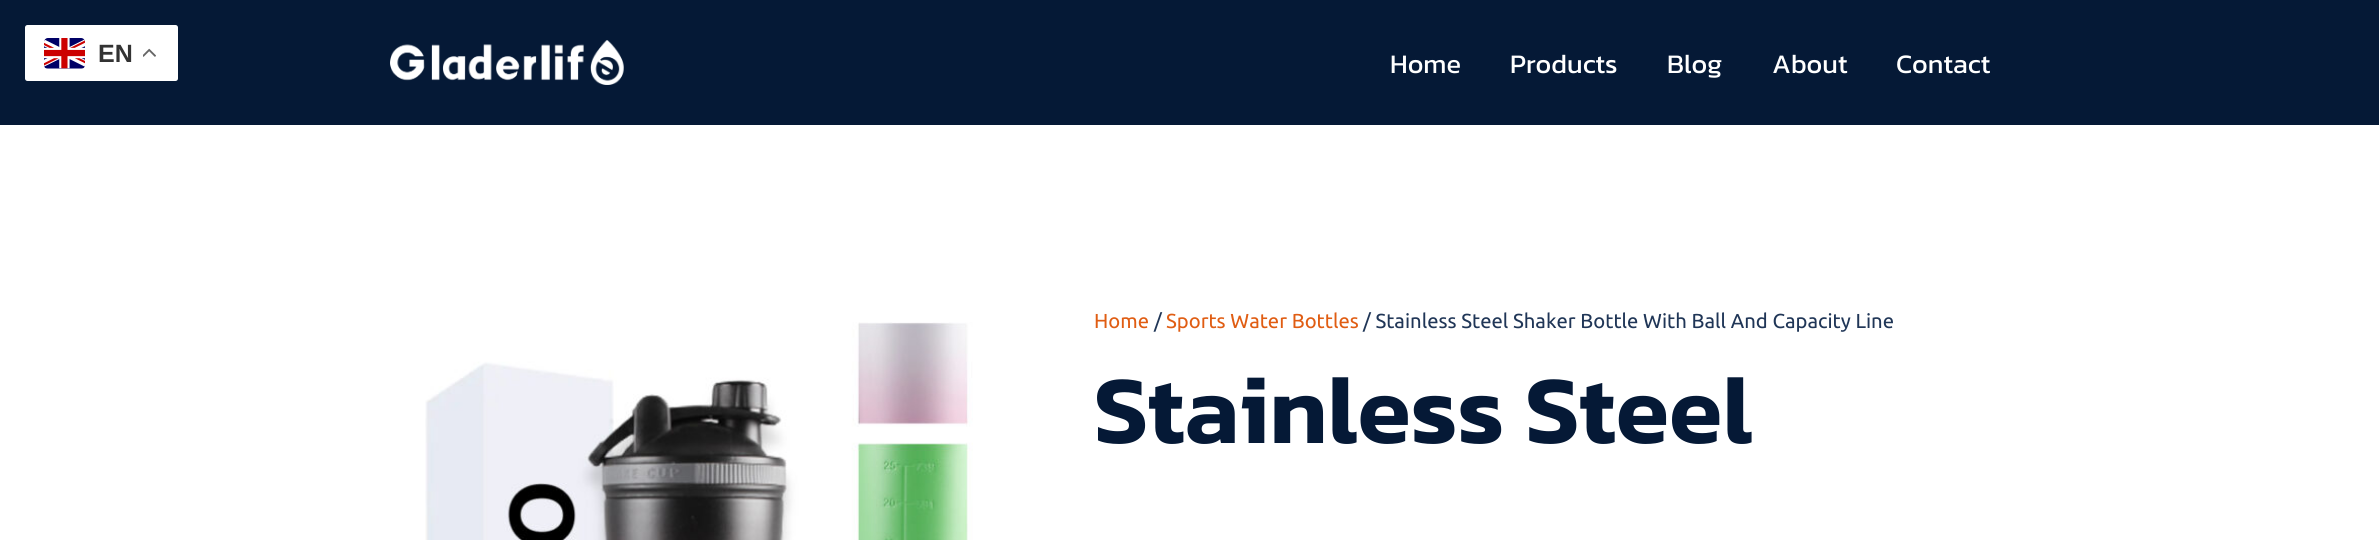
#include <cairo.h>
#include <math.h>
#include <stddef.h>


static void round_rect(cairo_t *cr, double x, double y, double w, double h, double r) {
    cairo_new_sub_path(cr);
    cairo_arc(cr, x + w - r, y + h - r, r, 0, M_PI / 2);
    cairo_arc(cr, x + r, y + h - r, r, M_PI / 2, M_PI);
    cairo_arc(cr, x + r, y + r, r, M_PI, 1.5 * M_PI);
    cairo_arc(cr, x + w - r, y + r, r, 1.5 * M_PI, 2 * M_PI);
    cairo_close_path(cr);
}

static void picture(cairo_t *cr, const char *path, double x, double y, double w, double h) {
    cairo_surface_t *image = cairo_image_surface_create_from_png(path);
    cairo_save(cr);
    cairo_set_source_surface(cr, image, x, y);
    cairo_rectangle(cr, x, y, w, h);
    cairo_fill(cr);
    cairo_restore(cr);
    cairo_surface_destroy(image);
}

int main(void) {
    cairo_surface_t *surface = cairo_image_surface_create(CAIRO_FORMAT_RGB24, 2379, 540);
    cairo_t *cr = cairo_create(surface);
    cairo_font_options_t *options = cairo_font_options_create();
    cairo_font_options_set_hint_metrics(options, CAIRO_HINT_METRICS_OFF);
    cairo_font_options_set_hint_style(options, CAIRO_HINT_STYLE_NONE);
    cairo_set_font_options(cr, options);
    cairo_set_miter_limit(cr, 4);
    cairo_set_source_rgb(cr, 1, 1, 1);
    cairo_paint(cr);
    cairo_set_source_rgb(cr, 0.02, 0.098, 0.212);
    cairo_rectangle(cr, 0, 0, 2379, 125);
    cairo_fill(cr);
    cairo_set_source_rgb(cr, 1, 1, 1);
    round_rect(cr, 25, 25, 153, 56, 2.5);
    cairo_fill(cr);
    picture(cr, "img1.png", 44, 38, 41, 31);
    cairo_select_font_face(cr, "Liberation Sans", CAIRO_FONT_SLANT_NORMAL, CAIRO_FONT_WEIGHT_BOLD);
    cairo_set_font_size(cr, 25);
    cairo_set_source_rgb(cr, 0.2, 0.2, 0.2);
    cairo_move_to(cr, 98, 62);
    cairo_show_text(cr, "EN");
    picture(cr, "img2.png", 143, 48, 13, 9);
    picture(cr, "img3.png", 390, 40, 234, 45);
    cairo_select_font_face(cr, "Kanit", CAIRO_FONT_SLANT_NORMAL, CAIRO_FONT_WEIGHT_NORMAL);
    cairo_set_font_size(cr, 27);
    cairo_set_source_rgb(cr, 1, 1, 1);
    cairo_move_to(cr, 1390, 73);
    cairo_show_text(cr, "Home");
    cairo_move_to(cr, 1510, 73);
    cairo_show_text(cr, "Products");
    cairo_move_to(cr, 1667, 73);
    cairo_show_text(cr, "Blog");
    cairo_move_to(cr, 1772, 73);
    cairo_show_text(cr, "About");
    cairo_move_to(cr, 1896, 73);
    cairo_show_text(cr, "Contact");
    picture(cr, "img4.png", 425, 322, 548, 218);
    cairo_select_font_face(cr, "Ubuntu", CAIRO_FONT_SLANT_NORMAL, CAIRO_FONT_WEIGHT_NORMAL);
    cairo_set_font_size(cr, 20.25);
    cairo_set_source_rgb(cr, 0.878, 0.365, 0.075);
    cairo_move_to(cr, 1094, 328);
    cairo_show_text(cr, "Home");
    cairo_set_source_rgb(cr, 0.125, 0.212, 0.341);
    cairo_move_to(cr, 1154, 328);
    cairo_show_text(cr, "/");
    cairo_set_source_rgb(cr, 0.878, 0.365, 0.075);
    cairo_move_to(cr, 1166, 328);
    cairo_show_text(cr, "Sports Water Bottles");
    cairo_set_source_rgb(cr, 0.125, 0.212, 0.341);
    cairo_move_to(cr, 1363, 328);
    cairo_show_text(cr, "/ Stainless Steel Shaker Bottle With Ball And Capacity Line");
    cairo_select_font_face(cr, "Kanit SemiBold", CAIRO_FONT_SLANT_NORMAL, CAIRO_FONT_WEIGHT_NORMAL);
    cairo_set_font_size(cr, 97.5);
    cairo_set_source_rgb(cr, 0.02, 0.098, 0.212);
    cairo_move_to(cr, 1094, 443);
    cairo_show_text(cr, "Stainless Steel");
    cairo_surface_write_to_png(surface, "page.png");
    cairo_font_options_destroy(options);
    cairo_destroy(cr);
    cairo_surface_destroy(surface);
    return 0;
}
